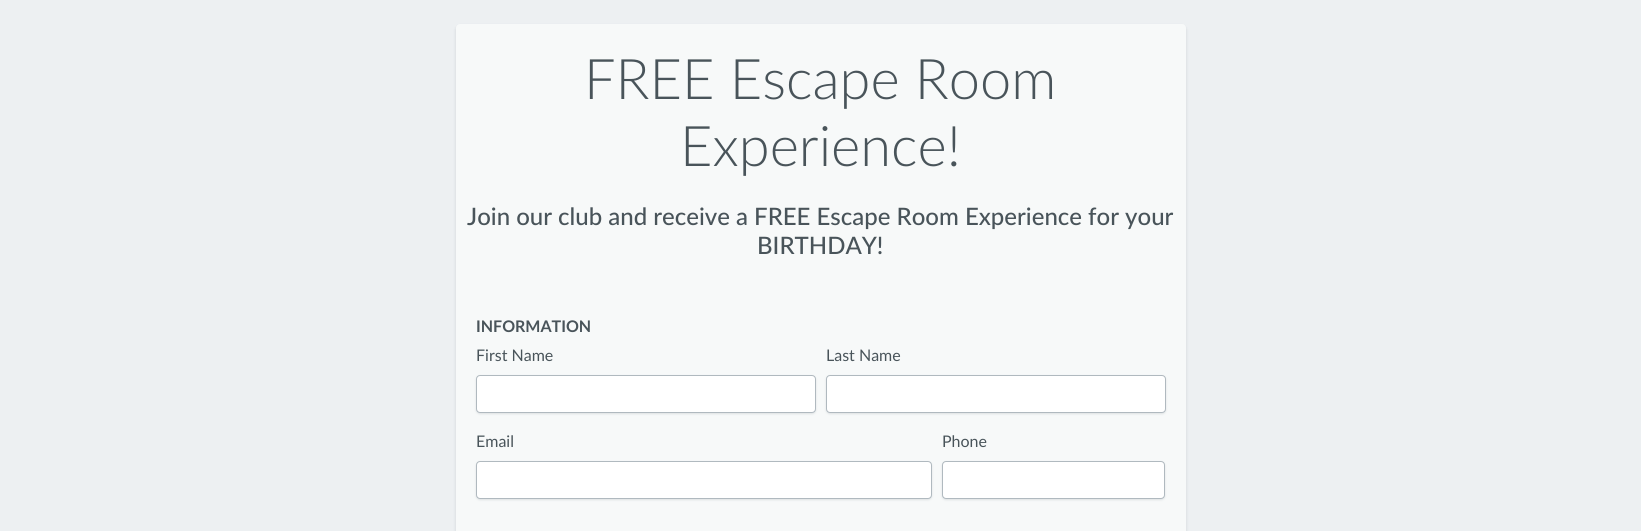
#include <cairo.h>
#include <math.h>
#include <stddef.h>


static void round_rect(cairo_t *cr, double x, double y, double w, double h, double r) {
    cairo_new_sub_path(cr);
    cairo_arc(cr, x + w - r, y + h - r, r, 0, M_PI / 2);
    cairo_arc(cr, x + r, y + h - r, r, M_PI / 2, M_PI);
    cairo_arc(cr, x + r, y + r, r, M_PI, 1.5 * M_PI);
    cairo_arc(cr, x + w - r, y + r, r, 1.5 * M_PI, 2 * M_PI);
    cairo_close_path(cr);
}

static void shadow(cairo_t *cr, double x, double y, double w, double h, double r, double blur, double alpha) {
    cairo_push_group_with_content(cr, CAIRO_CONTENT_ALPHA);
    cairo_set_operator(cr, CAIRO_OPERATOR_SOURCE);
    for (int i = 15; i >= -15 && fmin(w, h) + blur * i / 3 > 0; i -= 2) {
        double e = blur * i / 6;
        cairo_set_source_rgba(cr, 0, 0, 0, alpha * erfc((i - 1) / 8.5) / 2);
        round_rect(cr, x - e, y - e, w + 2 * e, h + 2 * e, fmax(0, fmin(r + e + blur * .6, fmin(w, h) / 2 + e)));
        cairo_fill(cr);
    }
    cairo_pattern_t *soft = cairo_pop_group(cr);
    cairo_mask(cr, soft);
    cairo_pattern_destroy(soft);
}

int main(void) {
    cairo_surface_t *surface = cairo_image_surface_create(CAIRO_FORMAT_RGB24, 1641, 531);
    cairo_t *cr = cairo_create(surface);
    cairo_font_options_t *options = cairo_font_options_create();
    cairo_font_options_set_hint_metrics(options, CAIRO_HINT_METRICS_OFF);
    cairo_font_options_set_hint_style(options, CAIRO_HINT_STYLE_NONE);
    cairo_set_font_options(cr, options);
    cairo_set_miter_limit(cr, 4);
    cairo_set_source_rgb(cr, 0.929, 0.941, 0.949);
    cairo_paint(cr);
    cairo_set_source_rgb(cr, 0.188, 0.22, 0.255);
    shadow(cr, 456, 26, 730, 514, 4, 1.5, 0.16);
    cairo_set_source_rgb(cr, 0.965, 0.973, 0.976);
    round_rect(cr, 456, 24, 730, 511, 4);
    cairo_fill(cr);
    cairo_select_font_face(cr, "Lato Light", CAIRO_FONT_SLANT_NORMAL, CAIRO_FONT_WEIGHT_NORMAL);
    cairo_set_font_size(cr, 56);
    cairo_set_source_rgb(cr, 0.286, 0.329, 0.353);
    cairo_move_to(cr, 584, 99);
    cairo_show_text(cr, "FREE Escape Room");
    cairo_move_to(cr, 680, 166);
    cairo_show_text(cr, "Experience!");
    cairo_select_font_face(cr, "Lato Medium", CAIRO_FONT_SLANT_NORMAL, CAIRO_FONT_WEIGHT_NORMAL);
    cairo_set_font_size(cr, 24);
    cairo_move_to(cr, 467, 225);
    cairo_show_text(cr, "Join our club and receive a FREE Escape Room Experience for your");
    cairo_move_to(cr, 757, 254);
    cairo_show_text(cr, "BIRTHDAY!");
    cairo_select_font_face(cr, "Lato", CAIRO_FONT_SLANT_NORMAL, CAIRO_FONT_WEIGHT_BOLD);
    cairo_set_font_size(cr, 16);
    cairo_move_to(cr, 476, 332);
    cairo_show_text(cr, "INFORMATION");
    cairo_select_font_face(cr, "Lato", CAIRO_FONT_SLANT_NORMAL, CAIRO_FONT_WEIGHT_NORMAL);
    cairo_move_to(cr, 476, 361);
    cairo_show_text(cr, "First Name");
    cairo_set_source_rgb(cr, 0.867, 0.882, 0.89);
    shadow(cr, 476, 376, 340, 38, 4, 1, 1);
    cairo_set_source_rgb(cr, 1, 1, 1);
    round_rect(cr, 476.5, 375.5, 339, 37, 3.5);
    cairo_fill_preserve(cr);
    cairo_set_source_rgb(cr, 0.69, 0.725, 0.749);
    cairo_set_line_width(cr, 1);
    cairo_stroke(cr);
    cairo_set_source_rgb(cr, 0.286, 0.329, 0.353);
    cairo_move_to(cr, 826, 361);
    cairo_show_text(cr, "Last Name");
    cairo_set_source_rgb(cr, 0.867, 0.882, 0.89);
    shadow(cr, 826, 376, 340, 38, 4, 1, 1);
    cairo_set_source_rgb(cr, 1, 1, 1);
    round_rect(cr, 826.5, 375.5, 339, 37, 3.5);
    cairo_fill_preserve(cr);
    cairo_set_source_rgb(cr, 0.69, 0.725, 0.749);
    cairo_stroke(cr);
    cairo_set_source_rgb(cr, 0.286, 0.329, 0.353);
    cairo_move_to(cr, 476, 447);
    cairo_show_text(cr, "Email");
    cairo_set_source_rgb(cr, 0.867, 0.882, 0.89);
    shadow(cr, 476, 462, 456, 38, 4, 1, 1);
    cairo_set_source_rgb(cr, 1, 1, 1);
    round_rect(cr, 476.5, 461.5, 455, 37, 3.5);
    cairo_fill_preserve(cr);
    cairo_set_source_rgb(cr, 0.69, 0.725, 0.749);
    cairo_stroke(cr);
    cairo_set_source_rgb(cr, 0.286, 0.329, 0.353);
    cairo_move_to(cr, 942, 447);
    cairo_show_text(cr, "Phone");
    cairo_set_source_rgb(cr, 0.867, 0.882, 0.89);
    shadow(cr, 942, 462, 223, 38, 4, 1, 1);
    cairo_set_source_rgb(cr, 1, 1, 1);
    round_rect(cr, 942.5, 461.5, 222, 37, 3.5);
    cairo_fill_preserve(cr);
    cairo_set_source_rgb(cr, 0.69, 0.725, 0.749);
    cairo_stroke(cr);
    cairo_surface_write_to_png(surface, "page.png");
    cairo_font_options_destroy(options);
    cairo_destroy(cr);
    cairo_surface_destroy(surface);
    return 0;
}
